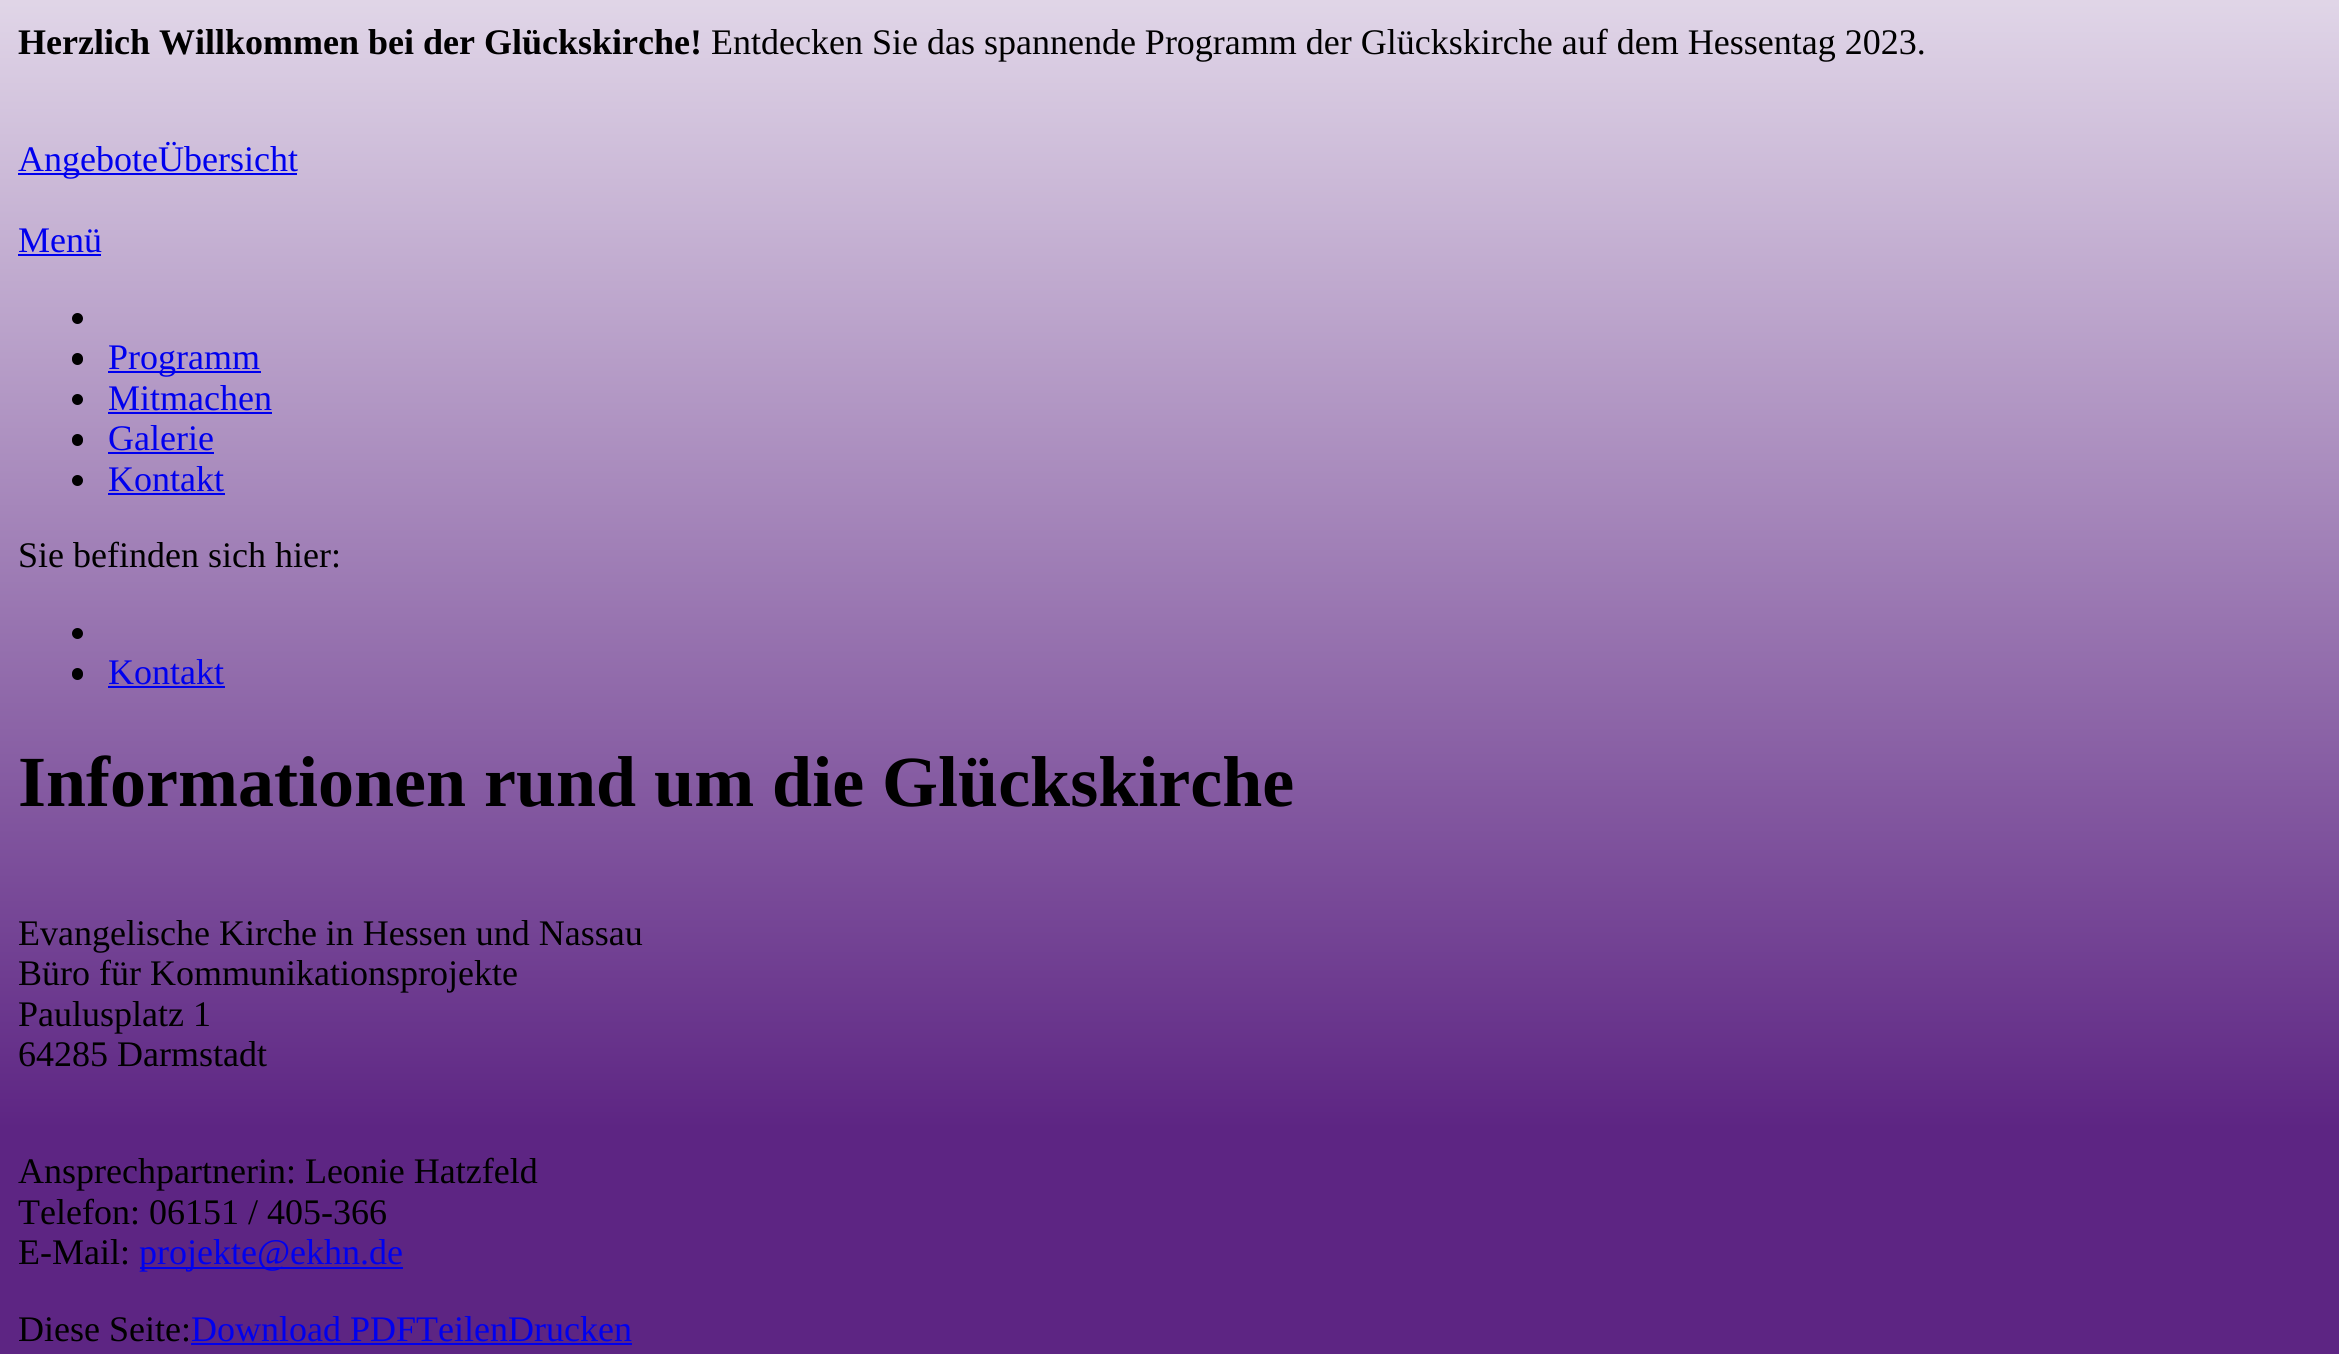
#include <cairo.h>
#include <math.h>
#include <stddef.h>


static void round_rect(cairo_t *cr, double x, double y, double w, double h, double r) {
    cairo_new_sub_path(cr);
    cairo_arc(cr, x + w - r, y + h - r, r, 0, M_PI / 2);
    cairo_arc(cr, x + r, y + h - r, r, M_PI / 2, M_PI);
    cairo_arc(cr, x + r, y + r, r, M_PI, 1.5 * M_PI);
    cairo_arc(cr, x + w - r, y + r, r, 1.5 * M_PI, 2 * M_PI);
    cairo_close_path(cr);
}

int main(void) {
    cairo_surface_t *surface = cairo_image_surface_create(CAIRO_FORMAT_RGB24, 2339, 1354);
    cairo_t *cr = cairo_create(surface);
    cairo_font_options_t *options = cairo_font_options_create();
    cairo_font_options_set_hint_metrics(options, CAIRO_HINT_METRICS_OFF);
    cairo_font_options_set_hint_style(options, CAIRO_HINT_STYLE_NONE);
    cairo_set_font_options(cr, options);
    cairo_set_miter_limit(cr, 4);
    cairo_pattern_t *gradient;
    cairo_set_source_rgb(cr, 1, 1, 1);
    cairo_paint(cr);
    gradient = cairo_pattern_create_linear(1170, 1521, 1170, -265);
    cairo_pattern_add_color_stop_rgba(gradient, 0.22, 0.365, 0.145, 0.514, 1);
    cairo_pattern_add_color_stop_rgba(gradient, 1, 1, 1, 1, 1);
    cairo_set_source(cr, gradient);
    cairo_pattern_destroy(gradient);
    cairo_rectangle(cr, 0, 0, 2339, 1354);
    cairo_fill(cr);
    cairo_select_font_face(cr, "Liberation Serif", CAIRO_FONT_SLANT_NORMAL, CAIRO_FONT_WEIGHT_BOLD);
    cairo_set_font_size(cr, 36);
    cairo_set_source_rgb(cr, 0, 0, 0);
    cairo_move_to(cr, 18, 54);
    cairo_show_text(cr, "Herzlich Willkommen bei der Glückskirche!");
    cairo_select_font_face(cr, "Liberation Serif", CAIRO_FONT_SLANT_NORMAL, CAIRO_FONT_WEIGHT_NORMAL);
    cairo_move_to(cr, 711, 54);
    cairo_show_text(cr, "Entdecken Sie das spannende Programm der Glückskirche auf dem Hessentag 2023.");
    cairo_set_source_rgb(cr, 0, 0, 0.933);
    cairo_rectangle(cr, 18, 173, 279, 2);
    cairo_fill(cr);
    cairo_move_to(cr, 18, 171);
    cairo_show_text(cr, "AngeboteÜbersicht");
    cairo_move_to(cr, 18, 252);
    cairo_show_text(cr, "Menü");
    cairo_rectangle(cr, 18, 254, 83, 2);
    cairo_fill(cr);
    cairo_set_source_rgb(cr, 0, 0, 0);
    cairo_arc(cr, 77.5, 318.5, 5.5, 0, 2 * M_PI);
    cairo_fill(cr);
    round_rect(cr, 72, 353, 11, 12, 5.5);
    cairo_fill(cr);
    cairo_set_source_rgb(cr, 0, 0, 0.933);
    cairo_rectangle(cr, 108, 371, 153, 2);
    cairo_fill(cr);
    cairo_move_to(cr, 108, 369);
    cairo_show_text(cr, "Programm");
    cairo_set_source_rgb(cr, 0, 0, 0);
    cairo_new_path(cr);
    cairo_arc(cr, 77.5, 399.5, 5.5, 0, 2 * M_PI);
    cairo_fill(cr);
    cairo_set_source_rgb(cr, 0, 0, 0.933);
    cairo_move_to(cr, 108, 410);
    cairo_show_text(cr, "Mitmachen");
    cairo_rectangle(cr, 108, 412, 164, 2);
    cairo_fill(cr);
    cairo_set_source_rgb(cr, 0, 0, 0);
    round_rect(cr, 72, 434, 11, 12, 5.5);
    cairo_fill(cr);
    cairo_set_source_rgb(cr, 0, 0, 0.933);
    cairo_move_to(cr, 108, 450);
    cairo_show_text(cr, "Galerie");
    cairo_rectangle(cr, 108, 452, 106, 2);
    cairo_fill(cr);
    cairo_set_source_rgb(cr, 0, 0, 0);
    cairo_arc(cr, 77.5, 480.5, 5.5, 0, 2 * M_PI);
    cairo_fill(cr);
    cairo_set_source_rgb(cr, 0, 0, 0.933);
    cairo_move_to(cr, 108, 491);
    cairo_show_text(cr, "Kontakt");
    cairo_rectangle(cr, 108, 493, 117, 2);
    cairo_fill(cr);
    cairo_set_source_rgb(cr, 0, 0, 0);
    cairo_move_to(cr, 18, 567);
    cairo_show_text(cr, "Sie befinden sich hier:");
    cairo_new_path(cr);
    cairo_arc(cr, 77.5, 633.5, 5.5, 0, 2 * M_PI);
    cairo_fill(cr);
    round_rect(cr, 72, 668, 11, 12, 5.5);
    cairo_fill(cr);
    cairo_set_source_rgb(cr, 0, 0, 0.933);
    cairo_move_to(cr, 108, 684);
    cairo_show_text(cr, "Kontakt");
    cairo_rectangle(cr, 108, 686, 117, 2);
    cairo_fill(cr);
    cairo_select_font_face(cr, "Liberation Serif", CAIRO_FONT_SLANT_NORMAL, CAIRO_FONT_WEIGHT_BOLD);
    cairo_set_font_size(cr, 72);
    cairo_set_source_rgb(cr, 0, 0, 0);
    cairo_move_to(cr, 18, 806);
    cairo_show_text(cr, "Informationen rund um die Glückskirche");
    cairo_select_font_face(cr, "Liberation Serif", CAIRO_FONT_SLANT_NORMAL, CAIRO_FONT_WEIGHT_NORMAL);
    cairo_set_font_size(cr, 36);
    cairo_move_to(cr, 18, 945);
    cairo_show_text(cr, "Evangelische Kirche in Hessen und Nassau");
    cairo_move_to(cr, 18, 985);
    cairo_show_text(cr, "Büro für Kommunikationsprojekte");
    cairo_move_to(cr, 18, 1026);
    cairo_show_text(cr, "Paulusplatz 1");
    cairo_move_to(cr, 18, 1066);
    cairo_show_text(cr, "64285 Darmstadt");
    cairo_move_to(cr, 18, 1183);
    cairo_show_text(cr, "Ansprechpartnerin: Leonie Hatzfeld");
    cairo_move_to(cr, 18, 1224);
    cairo_show_text(cr, "Telefon: 06151 / 405-366");
    cairo_move_to(cr, 18, 1264);
    cairo_show_text(cr, "E-Mail:");
    cairo_set_source_rgb(cr, 0, 0, 0.933);
    cairo_rectangle(cr, 140, 1267, 263, 2);
    cairo_fill(cr);
    cairo_move_to(cr, 139, 1264);
    cairo_show_text(cr, "projekte@ekhn.de");
    cairo_set_source_rgb(cr, 0, 0, 0);
    cairo_move_to(cr, 18, 1341);
    cairo_show_text(cr, "Diese Seite:");
    cairo_set_source_rgb(cr, 0, 0, 0.933);
    cairo_move_to(cr, 191, 1341);
    cairo_show_text(cr, "Download PDFTeilenDrucken");
    cairo_rectangle(cr, 191, 1343, 441, 2);
    cairo_fill(cr);
    cairo_surface_write_to_png(surface, "page.png");
    cairo_font_options_destroy(options);
    cairo_destroy(cr);
    cairo_surface_destroy(surface);
    return 0;
}
